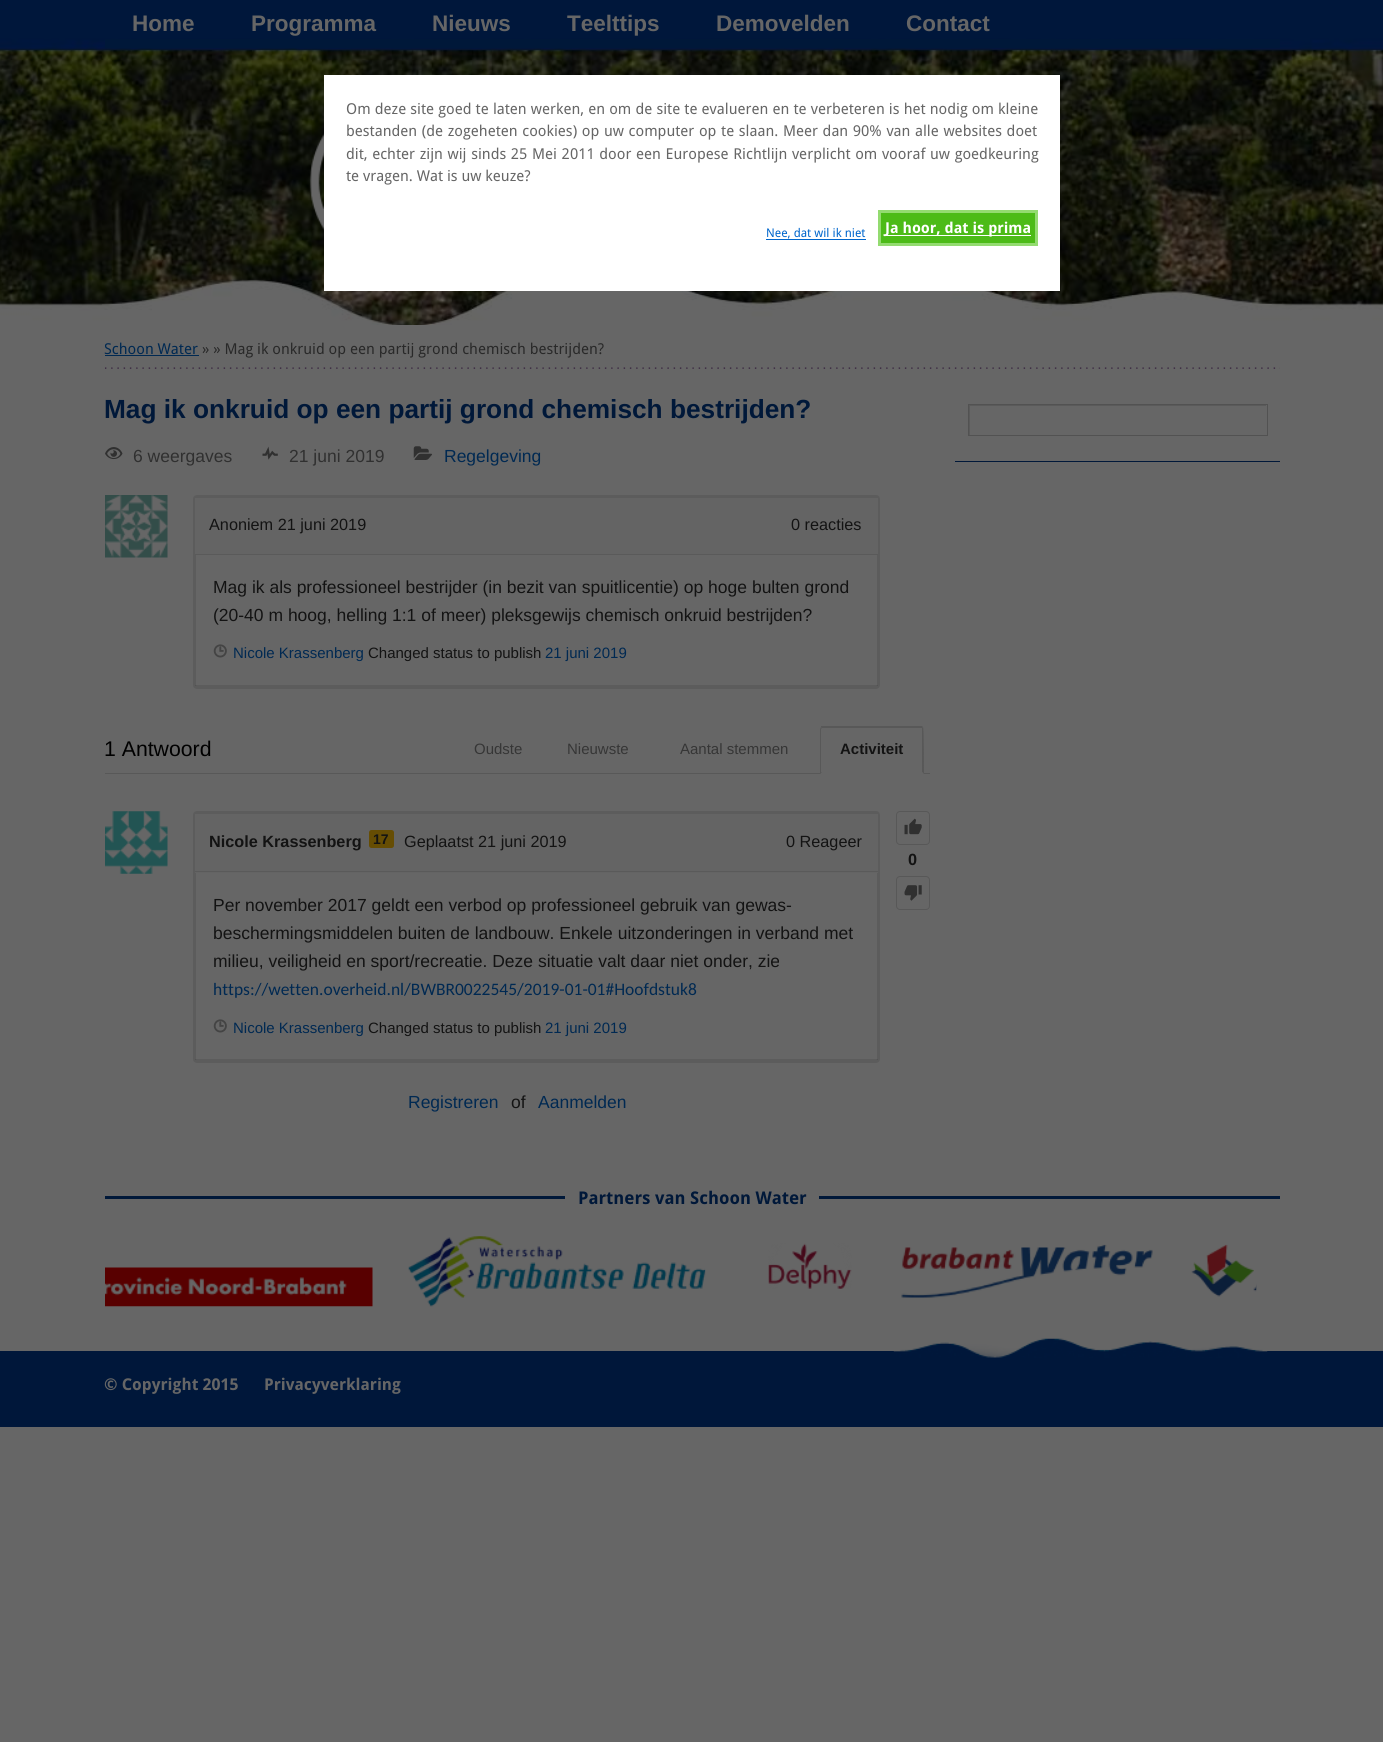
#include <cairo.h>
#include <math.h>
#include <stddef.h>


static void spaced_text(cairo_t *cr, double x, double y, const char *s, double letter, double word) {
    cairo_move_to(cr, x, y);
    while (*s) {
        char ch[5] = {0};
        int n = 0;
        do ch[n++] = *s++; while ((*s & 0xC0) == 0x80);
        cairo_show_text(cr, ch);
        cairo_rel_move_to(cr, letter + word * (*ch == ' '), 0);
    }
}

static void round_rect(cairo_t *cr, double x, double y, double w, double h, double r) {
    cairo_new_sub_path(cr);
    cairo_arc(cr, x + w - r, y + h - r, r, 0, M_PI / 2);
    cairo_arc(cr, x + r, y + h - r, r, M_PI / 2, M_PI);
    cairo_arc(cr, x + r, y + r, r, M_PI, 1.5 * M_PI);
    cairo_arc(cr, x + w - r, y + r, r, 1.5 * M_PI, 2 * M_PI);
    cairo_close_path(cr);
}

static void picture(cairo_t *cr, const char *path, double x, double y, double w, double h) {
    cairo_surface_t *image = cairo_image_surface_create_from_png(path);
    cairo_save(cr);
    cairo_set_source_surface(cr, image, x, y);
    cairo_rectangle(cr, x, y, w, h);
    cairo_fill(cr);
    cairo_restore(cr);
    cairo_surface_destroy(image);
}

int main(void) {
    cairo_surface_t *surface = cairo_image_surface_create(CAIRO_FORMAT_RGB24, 1383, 1742);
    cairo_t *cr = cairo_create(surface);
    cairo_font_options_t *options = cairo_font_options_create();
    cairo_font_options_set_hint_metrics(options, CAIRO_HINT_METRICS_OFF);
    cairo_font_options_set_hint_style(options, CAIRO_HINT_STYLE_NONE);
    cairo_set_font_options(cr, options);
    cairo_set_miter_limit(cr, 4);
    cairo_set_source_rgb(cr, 0.4, 0.4, 0.4);
    cairo_paint(cr);
    picture(cr, "img1.png", 0, 0, 1383, 325);
    cairo_set_source_rgb(cr, 0, 0.094, 0.224);
    cairo_rectangle(cr, 105, 39, 1175, 9);
    cairo_fill(cr);
    cairo_select_font_face(cr, "Liberation Sans", CAIRO_FONT_SLANT_NORMAL, CAIRO_FONT_WEIGHT_BOLD);
    cairo_set_font_size(cr, 22.5);
    cairo_set_source_rgb(cr, 0.4, 0.4, 0.4);
    cairo_move_to(cr, 132, 31);
    cairo_show_text(cr, "Home");
    cairo_move_to(cr, 251, 31);
    cairo_show_text(cr, "Programma");
    cairo_move_to(cr, 432, 31);
    cairo_show_text(cr, "Nieuws");
    cairo_move_to(cr, 567, 31);
    cairo_show_text(cr, "Teelttips");
    cairo_move_to(cr, 716, 31);
    cairo_show_text(cr, "Demovelden");
    cairo_move_to(cr, 906, 31);
    cairo_show_text(cr, "Contact");
    picture(cr, "img2.png", 307, 128, 17, 108);
    cairo_select_font_face(cr, "Droid Sans", CAIRO_FONT_SLANT_NORMAL, CAIRO_FONT_WEIGHT_NORMAL);
    cairo_set_font_size(cr, 15);
    cairo_set_source_rgb(cr, 0, 0.161, 0.322);
    cairo_move_to(cr, 104, 354);
    cairo_show_text(cr, "Schoon Water");
    cairo_rectangle(cr, 105, 355, 94, 1);
    cairo_fill(cr);
    cairo_set_source_rgb(cr, 0.161, 0.161, 0.161);
    cairo_move_to(cr, 202, 354);
    cairo_show_text(cr, "» » Mag ik onkruid op een partij grond chemisch bestrijden?");
    picture(cr, "img3.png", 105, 367, 1175, 2);
    cairo_select_font_face(cr, "Liberation Sans", CAIRO_FONT_SLANT_NORMAL, CAIRO_FONT_WEIGHT_BOLD);
    cairo_set_font_size(cr, 26.25);
    cairo_set_source_rgb(cr, 0, 0.094, 0.224);
    cairo_move_to(cr, 104, 418);
    cairo_show_text(cr, "Mag ik onkruid op een partij grond chemisch bestrijden?");
    picture(cr, "img4.png", 105, 447, 18, 13);
    cairo_select_font_face(cr, "Liberation Sans", CAIRO_FONT_SLANT_NORMAL, CAIRO_FONT_WEIGHT_NORMAL);
    cairo_set_font_size(cr, 17.5);
    cairo_set_source_rgb(cr, 0.188, 0.188, 0.188);
    cairo_move_to(cr, 133, 462);
    cairo_show_text(cr, "6 weergaves");
    picture(cr, "img5.png", 262, 446, 16, 14);
    cairo_move_to(cr, 289, 462);
    cairo_show_text(cr, "21 juni 2019");
    picture(cr, "img6.png", 413, 446, 20, 14);
    cairo_set_source_rgb(cr, 0, 0.161, 0.322);
    cairo_move_to(cr, 444, 462);
    cairo_show_text(cr, "Regelgeving");
    picture(cr, "img7.png", 105, 495, 63, 63);
    round_rect(cr, 194.5, 496.5, 684, 191, 2.5);
    cairo_set_source_rgb(cr, 0.361, 0.361, 0.361);
    cairo_set_line_width(cr, 3);
    cairo_stroke(cr);
    cairo_set_source_rgb(cr, 0.392, 0.392, 0.392);
    cairo_rectangle(cr, 195, 498, 683, 56);
    cairo_fill(cr);
    cairo_set_source_rgb(cr, 0.353, 0.353, 0.353);
    cairo_rectangle(cr, 195, 554, 683, 1);
    cairo_fill(cr);
    cairo_set_font_size(cr, 16.25);
    cairo_set_source_rgb(cr, 0.078, 0.078, 0.078);
    cairo_move_to(cr, 209, 530);
    cairo_show_text(cr, "Anoniem 21 juni 2019");
    cairo_move_to(cr, 791, 530);
    cairo_show_text(cr, "0 reacties");
    cairo_set_font_size(cr, 17.5);
    cairo_move_to(cr, 213, 593);
    cairo_show_text(cr, "Mag ik als professioneel bestrijder (in bezit van spuitlicentie) op hoge bulten grond");
    cairo_move_to(cr, 213, 621);
    cairo_show_text(cr, "(20-40 m hoog, helling 1:1 of meer) pleksgewijs chemisch onkruid bestrijden?");
    picture(cr, "img8.png", 213, 644, 14, 14);
    cairo_set_font_size(cr, 15);
    cairo_set_source_rgb(cr, 0, 0.161, 0.322);
    cairo_move_to(cr, 233, 658);
    cairo_show_text(cr, "Nicole Krassenberg");
    cairo_set_source_rgb(cr, 0.078, 0.078, 0.078);
    cairo_move_to(cr, 368, 658);
    cairo_show_text(cr, "Changed status to publish");
    cairo_set_source_rgb(cr, 0, 0.161, 0.322);
    cairo_move_to(cr, 545, 658);
    cairo_show_text(cr, "21 juni 2019");
    cairo_set_source_rgba(cr, 0, 0, 0, 0.1);
    cairo_rectangle(cr, 195, 685, 683, 1);
    cairo_fill(cr);
    cairo_set_source_rgb(cr, 0.345, 0.345, 0.345);
    cairo_rectangle(cr, 105, 773, 825, 1);
    cairo_fill(cr);
    cairo_set_font_size(cr, 21.25);
    cairo_set_source_rgb(cr, 0, 0, 0);
    cairo_move_to(cr, 104, 756);
    cairo_show_text(cr, "1 Antwoord");
    cairo_set_font_size(cr, 15);
    cairo_set_source_rgb(cr, 0.212, 0.212, 0.212);
    cairo_move_to(cr, 474, 754);
    cairo_show_text(cr, "Oudste");
    cairo_move_to(cr, 567, 754);
    cairo_show_text(cr, "Nieuwste");
    cairo_move_to(cr, 680, 754);
    cairo_show_text(cr, "Aantal stemmen");
    cairo_set_source_rgb(cr, 0.345, 0.345, 0.345);
    cairo_new_path(cr);
    cairo_move_to(cr, 822, 728);
    cairo_line_to(cr, 821, 727);
    cairo_line_to(cr, 821, 726);
    cairo_line_to(cr, 922, 726);
    cairo_line_to(cr, 923, 727);
    cairo_line_to(cr, 922, 728);
    cairo_line_to(cr, 921, 728);
    cairo_close_path(cr);
    cairo_fill(cr);
    cairo_new_path(cr);
    cairo_move_to(cr, 923, 727);
    cairo_curve_to(cr, 924, 728, 924, 769, 924, 774);
    cairo_line_to(cr, 922, 772);
    cairo_line_to(cr, 922, 728);
    cairo_close_path(cr);
    cairo_fill(cr);
    cairo_set_source_rgb(cr, 0.4, 0.4, 0.4);
    cairo_new_path(cr);
    cairo_move_to(cr, 924, 774);
    cairo_line_to(cr, 922, 772);
    cairo_line_to(cr, 822, 772);
    cairo_line_to(cr, 820, 774);
    cairo_close_path(cr);
    cairo_fill(cr);
    cairo_set_source_rgb(cr, 0.345, 0.345, 0.345);
    cairo_new_path(cr);
    cairo_move_to(cr, 820, 774);
    cairo_line_to(cr, 822, 772);
    cairo_line_to(cr, 821, 772);
    cairo_line_to(cr, 821, 729);
    cairo_line_to(cr, 822, 728);
    cairo_line_to(cr, 821, 727);
    cairo_line_to(cr, 820, 729);
    cairo_close_path(cr);
    cairo_fill(cr);
    cairo_select_font_face(cr, "Liberation Sans", CAIRO_FONT_SLANT_NORMAL, CAIRO_FONT_WEIGHT_BOLD);
    cairo_set_source_rgb(cr, 0.078, 0.078, 0.078);
    cairo_move_to(cr, 840, 754);
    cairo_show_text(cr, "Activiteit");
    picture(cr, "img9.png", 105, 811, 63, 63);
    round_rect(cr, 194.5, 812.5, 684, 249, 2.5);
    cairo_set_source_rgb(cr, 0.361, 0.361, 0.361);
    cairo_stroke(cr);
    cairo_set_source_rgb(cr, 0.392, 0.392, 0.392);
    cairo_rectangle(cr, 195, 814, 683, 59);
    cairo_fill(cr);
    cairo_set_source_rgb(cr, 0.353, 0.353, 0.353);
    cairo_rectangle(cr, 195, 871, 683, 1);
    cairo_fill(cr);
    cairo_set_font_size(cr, 16.25);
    cairo_set_source_rgb(cr, 0.078, 0.078, 0.078);
    cairo_move_to(cr, 209, 847);
    cairo_show_text(cr, "Nicole Krassenberg");
    cairo_set_source_rgb(cr, 0.4, 0.302, 0.012);
    round_rect(cr, 369, 830, 25, 18, 2.5);
    cairo_fill(cr);
    cairo_set_font_size(cr, 14);
    cairo_set_source_rgb(cr, 0.078, 0.078, 0.078);
    cairo_move_to(cr, 373, 844);
    cairo_show_text(cr, "17");
    cairo_select_font_face(cr, "Liberation Sans", CAIRO_FONT_SLANT_NORMAL, CAIRO_FONT_WEIGHT_NORMAL);
    cairo_set_font_size(cr, 16.25);
    cairo_move_to(cr, 404, 847);
    cairo_show_text(cr, "Geplaatst 21 juni 2019");
    cairo_move_to(cr, 786, 847);
    cairo_show_text(cr, "0 Reageer");
    cairo_set_font_size(cr, 17.5);
    cairo_move_to(cr, 213, 911);
    cairo_show_text(cr, "Per november 2017 geldt een verbod op professioneel gebruik van gewas-");
    cairo_move_to(cr, 213, 939);
    cairo_show_text(cr, "beschermingsmiddelen buiten de landbouw. Enkele uitzonderingen in verband met");
    cairo_move_to(cr, 213, 967);
    cairo_show_text(cr, "milieu, veiligheid en sport/recreatie. Deze situatie valt daar niet onder, zie");
    cairo_select_font_face(cr, "Carlito", CAIRO_FONT_SLANT_NORMAL, CAIRO_FONT_WEIGHT_NORMAL);
    cairo_set_source_rgb(cr, 0, 0.161, 0.322);
    cairo_move_to(cr, 213, 995);
    cairo_show_text(cr, "https://wetten.overheid.nl/BWBR0022545/2019-01-01#Hoofdstuk8");
    picture(cr, "img8.png", 213, 1019, 14, 14);
    cairo_select_font_face(cr, "Liberation Sans", CAIRO_FONT_SLANT_NORMAL, CAIRO_FONT_WEIGHT_NORMAL);
    cairo_set_font_size(cr, 15);
    cairo_move_to(cr, 233, 1033);
    cairo_show_text(cr, "Nicole Krassenberg");
    cairo_set_source_rgb(cr, 0.078, 0.078, 0.078);
    cairo_move_to(cr, 368, 1033);
    cairo_show_text(cr, "Changed status to publish");
    cairo_set_source_rgb(cr, 0, 0.161, 0.322);
    cairo_move_to(cr, 545, 1033);
    cairo_show_text(cr, "21 juni 2019");
    cairo_set_source_rgba(cr, 0, 0, 0, 0.1);
    cairo_rectangle(cr, 195, 1059, 683, 1);
    cairo_fill(cr);
    round_rect(cr, 896.5, 811.5, 33, 33, 3.5);
    cairo_set_source_rgb(cr, 0.345, 0.345, 0.345);
    cairo_set_line_width(cr, 1);
    cairo_stroke(cr);
    picture(cr, "img10.png", 904, 818, 18, 17);
    cairo_select_font_face(cr, "Liberation Sans", CAIRO_FONT_SLANT_NORMAL, CAIRO_FONT_WEIGHT_BOLD);
    cairo_set_font_size(cr, 16.25);
    cairo_set_source_rgb(cr, 0.078, 0.078, 0.078);
    cairo_move_to(cr, 908, 865);
    cairo_show_text(cr, "0");
    round_rect(cr, 896.5, 876.5, 33, 33, 3.5);
    cairo_set_source_rgb(cr, 0.345, 0.345, 0.345);
    cairo_stroke(cr);
    picture(cr, "img11.png", 904, 885, 18, 16);
    cairo_select_font_face(cr, "Liberation Sans", CAIRO_FONT_SLANT_NORMAL, CAIRO_FONT_WEIGHT_NORMAL);
    cairo_set_font_size(cr, 17.5);
    cairo_set_source_rgb(cr, 0, 0.161, 0.322);
    cairo_move_to(cr, 408, 1108);
    cairo_show_text(cr, "Registreren");
    cairo_set_source_rgb(cr, 0.078, 0.078, 0.078);
    cairo_move_to(cr, 511, 1108);
    cairo_show_text(cr, "of");
    cairo_set_source_rgb(cr, 0, 0.161, 0.322);
    cairo_move_to(cr, 538, 1108);
    cairo_show_text(cr, "Aanmelden");
    cairo_set_source_rgb(cr, 0, 0.094, 0.224);
    cairo_rectangle(cr, 955, 461, 325, 1);
    cairo_fill(cr);
    cairo_save(cr);
    cairo_rectangle(cr, 969, 405, 297, 30);
    cairo_clip(cr);
    cairo_set_source_rgb(cr, 0.353, 0.353, 0.353);
    cairo_set_fill_rule(cr, CAIRO_FILL_RULE_EVEN_ODD);
    cairo_new_path(cr);
    cairo_move_to(cr, 845, 281);
    cairo_line_to(cr, 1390, 281);
    cairo_line_to(cr, 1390, 559);
    cairo_line_to(cr, 845, 559);
    cairo_close_path(cr);
    cairo_move_to(cr, 970, 406);
    cairo_line_to(cr, 1268, 406);
    cairo_line_to(cr, 1268, 436);
    cairo_line_to(cr, 970, 436);
    cairo_close_path(cr);
    cairo_fill(cr);
    cairo_restore(cr);
    cairo_rectangle(cr, 968.5, 404.5, 299, 31);
    cairo_set_source_rgb(cr, 0.322, 0.322, 0.322);
    cairo_stroke(cr);
    cairo_set_source_rgb(cr, 0, 0.094, 0.224);
    cairo_rectangle(cr, 105, 1196, 1175, 3);
    cairo_fill(cr);
    cairo_set_source_rgb(cr, 0.4, 0.4, 0.4);
    cairo_rectangle(cr, 565, 1196, 254, 3);
    cairo_fill(cr);
    cairo_select_font_face(cr, "Droid Sans", CAIRO_FONT_SLANT_NORMAL, CAIRO_FONT_WEIGHT_BOLD);
    cairo_set_source_rgb(cr, 0, 0.094, 0.224);
    cairo_move_to(cr, 578, 1204);
    cairo_show_text(cr, "Partners van Schoon Water");
    picture(cr, "img12.png", 105, 1267, 268, 40);
    picture(cr, "img13.png", 408, 1236, 298, 71);
    picture(cr, "img14.png", 768, 1243, 84, 46);
    picture(cr, "img15.png", 901, 1244, 252, 55);
    picture(cr, "img16.png", 1191, 1244, 66, 53);
    cairo_set_source_rgb(cr, 1, 1, 1);
    cairo_rectangle(cr, 324, 75, 736, 216);
    cairo_fill(cr);
    cairo_select_font_face(cr, "Droid Sans", CAIRO_FONT_SLANT_NORMAL, CAIRO_FONT_WEIGHT_NORMAL);
    cairo_set_font_size(cr, 15);
    cairo_set_source_rgb(cr, 0.4, 0.4, 0.4);
    spaced_text(cr, 346, 114, "Om deze site goed te laten werken, en om de site te evalueren en te verbeteren is het nodig om kleine", 0, 0.25);
    spaced_text(cr, 346, 136, "bestanden (de zogeheten cookies) op uw computer op te slaan. Meer dan 90% van alle websites doet", 0, 0.75);
    spaced_text(cr, 346, 159, "dit, echter zijn wij sinds 25 Mei 2011 door een Europese Richtlijn verplicht om vooraf uw goedkeuring", 0, 0.75);
    cairo_move_to(cr, 346, 181);
    cairo_show_text(cr, "te vragen. Wat is uw keuze?");
    cairo_set_font_size(cr, 12);
    cairo_set_source_rgb(cr, 0, 0.4, 0.8);
    cairo_move_to(cr, 766, 237);
    cairo_show_text(cr, "Nee, dat wil ik niet");
    cairo_rectangle(cr, 766, 239, 100, 1);
    cairo_fill(cr);
    cairo_set_source_rgb(cr, 0.298, 0.733, 0.09);
    cairo_rectangle(cr, 879.5, 211.5, 157, 33);
    cairo_fill_preserve(cr);
    cairo_set_source_rgb(cr, 0.576, 0.859, 0.439);
    cairo_set_line_width(cr, 3);
    cairo_stroke(cr);
    cairo_set_source_rgb(cr, 1, 1, 1);
    cairo_rectangle(cr, 885, 235, 146, 1);
    cairo_fill(cr);
    cairo_select_font_face(cr, "Droid Sans", CAIRO_FONT_SLANT_NORMAL, CAIRO_FONT_WEIGHT_BOLD);
    cairo_set_font_size(cr, 15);
    cairo_move_to(cr, 885, 233);
    cairo_show_text(cr, "Ja hoor, dat is prima");
    cairo_set_source_rgb(cr, 0, 0.09, 0.227);
    cairo_rectangle(cr, 0, 1351, 1383, 76);
    cairo_fill(cr);
    picture(cr, "img17.png", 893, 1338, 375, 20);
    cairo_set_font_size(cr, 16.25);
    cairo_set_source_rgb(cr, 0.4, 0.4, 0.4);
    cairo_move_to(cr, 104, 1390);
    cairo_show_text(cr, "© Copyright 2015");
    cairo_move_to(cr, 264, 1390);
    cairo_show_text(cr, "Privacyverklaring");
    cairo_surface_write_to_png(surface, "page.png");
    cairo_font_options_destroy(options);
    cairo_destroy(cr);
    cairo_surface_destroy(surface);
    return 0;
}
